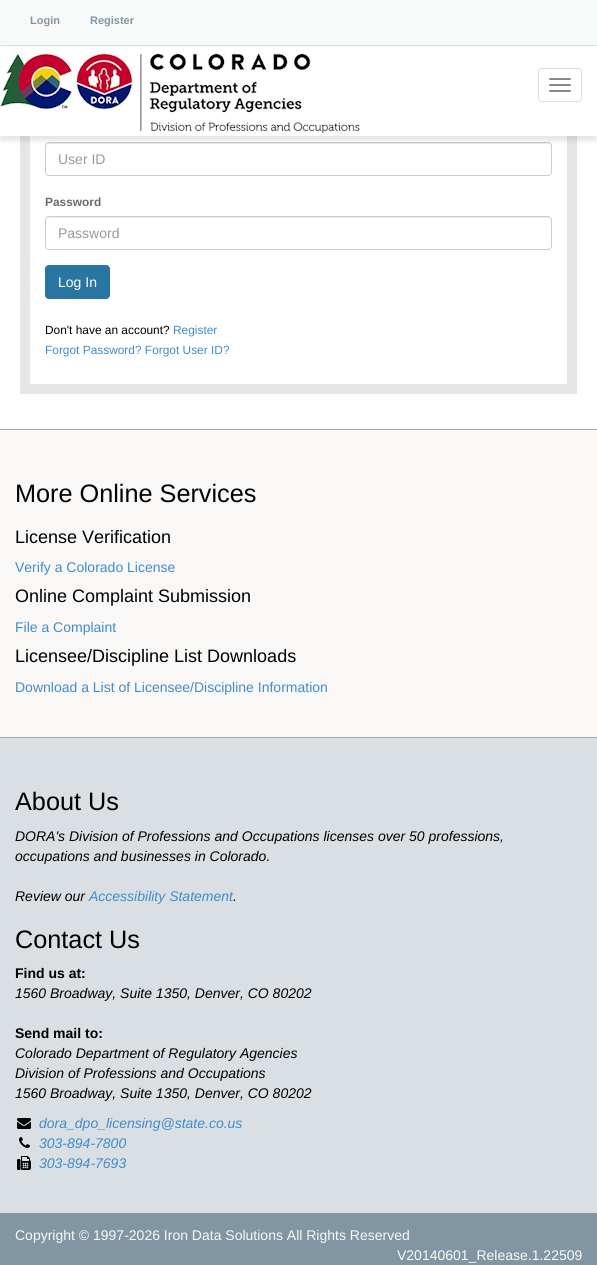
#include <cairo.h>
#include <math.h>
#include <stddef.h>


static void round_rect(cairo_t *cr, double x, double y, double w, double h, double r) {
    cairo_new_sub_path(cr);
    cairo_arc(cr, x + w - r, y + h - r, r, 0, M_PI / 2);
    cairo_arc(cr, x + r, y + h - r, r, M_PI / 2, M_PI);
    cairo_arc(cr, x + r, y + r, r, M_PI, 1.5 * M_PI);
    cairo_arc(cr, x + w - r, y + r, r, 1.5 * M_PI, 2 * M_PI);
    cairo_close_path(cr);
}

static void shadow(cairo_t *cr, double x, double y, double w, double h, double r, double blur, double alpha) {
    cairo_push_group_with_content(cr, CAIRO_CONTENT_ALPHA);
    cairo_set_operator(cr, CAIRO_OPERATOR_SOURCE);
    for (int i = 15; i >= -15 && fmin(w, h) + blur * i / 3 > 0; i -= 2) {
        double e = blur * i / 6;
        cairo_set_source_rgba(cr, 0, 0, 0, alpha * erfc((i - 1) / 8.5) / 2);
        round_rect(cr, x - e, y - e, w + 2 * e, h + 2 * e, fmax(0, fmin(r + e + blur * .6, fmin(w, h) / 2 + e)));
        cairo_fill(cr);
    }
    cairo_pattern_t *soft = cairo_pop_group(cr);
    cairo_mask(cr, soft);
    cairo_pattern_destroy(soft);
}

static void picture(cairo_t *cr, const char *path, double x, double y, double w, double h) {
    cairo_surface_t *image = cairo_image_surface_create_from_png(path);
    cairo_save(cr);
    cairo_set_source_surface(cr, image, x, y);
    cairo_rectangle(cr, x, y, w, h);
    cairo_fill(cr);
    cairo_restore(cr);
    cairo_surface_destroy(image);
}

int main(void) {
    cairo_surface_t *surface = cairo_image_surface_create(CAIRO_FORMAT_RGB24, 597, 1265);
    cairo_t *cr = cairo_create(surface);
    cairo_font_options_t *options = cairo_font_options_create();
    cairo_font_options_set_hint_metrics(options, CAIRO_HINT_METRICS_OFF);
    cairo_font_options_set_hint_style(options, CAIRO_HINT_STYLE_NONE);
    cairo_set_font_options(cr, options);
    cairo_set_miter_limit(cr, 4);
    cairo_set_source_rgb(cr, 1, 1, 1);
    cairo_paint(cr);
    cairo_set_source_rgb(cr, 0.965, 0.973, 0.973);
    cairo_rectangle(cr, 0, 0, 597, 45);
    cairo_fill(cr);
    cairo_set_source_rgb(cr, 0.851, 0.875, 0.89);
    cairo_rectangle(cr, 0, 45, 597, 1);
    cairo_fill(cr);
    cairo_select_font_face(cr, "Liberation Sans", CAIRO_FONT_SLANT_NORMAL, CAIRO_FONT_WEIGHT_BOLD);
    cairo_set_font_size(cr, 11);
    cairo_set_source_rgb(cr, 0.506, 0.588, 0.635);
    cairo_move_to(cr, 30, 24);
    cairo_show_text(cr, "Login");
    cairo_move_to(cr, 90, 24);
    cairo_show_text(cr, "Register");
    cairo_rectangle(cr, 25, 56, 547, 333);
    cairo_set_source_rgb(cr, 0.902, 0.902, 0.902);
    cairo_set_line_width(cr, 10);
    cairo_stroke(cr);
    cairo_set_source_rgb(cr, 0.925, 0.925, 0.925);
    cairo_new_path(cr);
    cairo_move_to(cr, 49, 144);
    cairo_line_to(cr, 548, 144);
    cairo_curve_to(cr, 550, 144, 551, 145, 551, 147);
    cairo_curve_to(cr, 551, 145, 550, 143, 548, 143);
    cairo_line_to(cr, 49, 143);
    cairo_curve_to(cr, 47, 143, 46, 145, 46, 147);
    cairo_curve_to(cr, 46, 145, 47, 144, 49, 144);
    cairo_close_path(cr);
    cairo_fill(cr);
    round_rect(cr, 45.5, 142.5, 506, 33, 3.5);
    cairo_set_source_rgb(cr, 0.8, 0.8, 0.8);
    cairo_set_line_width(cr, 1);
    cairo_stroke(cr);
    cairo_set_source_rgb(cr, 0, 0, 0);
    shadow(cr, 0, 51, 597, 90, 0, 2.5, 0.1);
    cairo_set_source_rgb(cr, 1, 1, 1);
    cairo_rectangle(cr, 0, 48, 597, 88);
    cairo_fill(cr);
    picture(cr, "img1.png", 0, 50, 360, 84);
    round_rect(cr, 538.5, 68.5, 43, 33, 3.5);
    cairo_set_source_rgb(cr, 0.867, 0.867, 0.867);
    cairo_stroke(cr);
    cairo_set_source_rgb(cr, 0.533, 0.533, 0.533);
    round_rect(cr, 549, 78, 22, 2, 1);
    cairo_fill(cr);
    round_rect(cr, 549, 84, 22, 2, 1);
    cairo_fill(cr);
    round_rect(cr, 549, 90, 22, 2, 1);
    cairo_fill(cr);
    cairo_set_source_rgb(cr, 0.667, 0.667, 0.667);
    cairo_rectangle(cr, 0, 429, 597, 1);
    cairo_fill(cr);
    cairo_select_font_face(cr, "Liberation Sans", CAIRO_FONT_SLANT_NORMAL, CAIRO_FONT_WEIGHT_NORMAL);
    cairo_set_font_size(cr, 14);
    cairo_set_source_rgb(cr, 0.6, 0.6, 0.6);
    cairo_move_to(cr, 58, 164);
    cairo_show_text(cr, "User ID");
    cairo_select_font_face(cr, "Liberation Sans", CAIRO_FONT_SLANT_NORMAL, CAIRO_FONT_WEIGHT_BOLD);
    cairo_set_font_size(cr, 11.9);
    cairo_set_source_rgb(cr, 0.416, 0.416, 0.416);
    cairo_move_to(cr, 45, 206);
    cairo_show_text(cr, "Password");
    cairo_set_source_rgb(cr, 0.925, 0.925, 0.925);
    cairo_new_path(cr);
    cairo_move_to(cr, 49, 218);
    cairo_line_to(cr, 548, 218);
    cairo_curve_to(cr, 550, 218, 551, 219, 551, 221);
    cairo_curve_to(cr, 551, 219, 550, 217, 548, 217);
    cairo_line_to(cr, 49, 217);
    cairo_curve_to(cr, 47, 217, 46, 219, 46, 221);
    cairo_curve_to(cr, 46, 219, 47, 218, 49, 218);
    cairo_close_path(cr);
    cairo_fill(cr);
    round_rect(cr, 45.5, 216.5, 506, 33, 3.5);
    cairo_set_source_rgb(cr, 0.8, 0.8, 0.8);
    cairo_stroke(cr);
    cairo_select_font_face(cr, "Liberation Sans", CAIRO_FONT_SLANT_NORMAL, CAIRO_FONT_WEIGHT_NORMAL);
    cairo_set_font_size(cr, 14);
    cairo_set_source_rgb(cr, 0.6, 0.6, 0.6);
    cairo_move_to(cr, 58, 238);
    cairo_show_text(cr, "Password");
    cairo_set_source_rgb(cr, 0.161, 0.463, 0.639);
    round_rect(cr, 45, 265, 65, 34, 4);
    cairo_fill(cr);
    cairo_set_source_rgb(cr, 1, 1, 1);
    cairo_move_to(cr, 58, 287);
    cairo_show_text(cr, "Log In");
    cairo_set_font_size(cr, 11.9);
    cairo_set_source_rgb(cr, 0, 0, 0);
    cairo_move_to(cr, 45, 334);
    cairo_show_text(cr, "Don't have an account?");
    cairo_set_source_rgb(cr, 0.259, 0.545, 0.792);
    cairo_move_to(cr, 173, 334);
    cairo_show_text(cr, "Register");
    cairo_move_to(cr, 45, 354);
    cairo_show_text(cr, "Forgot Password? Forgot User ID?");
    cairo_set_source_rgb(cr, 0.973, 0.969, 0.965);
    cairo_rectangle(cr, 0, 430, 597, 307);
    cairo_fill(cr);
    cairo_set_source_rgb(cr, 0.667, 0.667, 0.667);
    cairo_rectangle(cr, 0, 737, 597, 1);
    cairo_fill(cr);
    cairo_set_font_size(cr, 25.25);
    cairo_set_source_rgb(cr, 0, 0, 0);
    cairo_move_to(cr, 15, 502);
    cairo_show_text(cr, "More Online Services");
    cairo_set_font_size(cr, 18);
    cairo_move_to(cr, 15, 543);
    cairo_show_text(cr, "License Verification");
    cairo_set_font_size(cr, 14);
    cairo_set_source_rgb(cr, 0.259, 0.545, 0.792);
    cairo_move_to(cr, 15, 572);
    cairo_show_text(cr, "Verify a Colorado License");
    cairo_set_font_size(cr, 18);
    cairo_set_source_rgb(cr, 0, 0, 0);
    cairo_move_to(cr, 15, 602);
    cairo_show_text(cr, "Online Complaint Submission");
    cairo_set_font_size(cr, 14);
    cairo_set_source_rgb(cr, 0.259, 0.545, 0.792);
    cairo_move_to(cr, 15, 632);
    cairo_show_text(cr, "File a Complaint");
    cairo_set_font_size(cr, 18);
    cairo_set_source_rgb(cr, 0, 0, 0);
    cairo_move_to(cr, 15, 662);
    cairo_show_text(cr, "Licensee/Discipline List Downloads");
    cairo_set_font_size(cr, 14);
    cairo_set_source_rgb(cr, 0.259, 0.545, 0.792);
    cairo_move_to(cr, 15, 692);
    cairo_show_text(cr, "Download a List of Licensee/Discipline Information");
    cairo_set_source_rgb(cr, 0.851, 0.875, 0.89);
    cairo_rectangle(cr, 0, 738, 597, 475);
    cairo_fill(cr);
    cairo_set_font_size(cr, 25.25);
    cairo_set_source_rgb(cr, 0, 0, 0);
    cairo_move_to(cr, 15, 810);
    cairo_show_text(cr, "About Us");
    cairo_select_font_face(cr, "Liberation Sans", CAIRO_FONT_SLANT_ITALIC, CAIRO_FONT_WEIGHT_NORMAL);
    cairo_set_font_size(cr, 14);
    cairo_move_to(cr, 15, 841);
    cairo_show_text(cr, "DORA's Division of Professions and Occupations licenses over 50 professions,");
    cairo_move_to(cr, 15, 861);
    cairo_show_text(cr, "occupations and businesses in Colorado.");
    cairo_move_to(cr, 15, 901);
    cairo_show_text(cr, "Review our");
    cairo_set_source_rgb(cr, 0.259, 0.545, 0.792);
    cairo_move_to(cr, 89, 901);
    cairo_show_text(cr, "Accessibility Statement");
    cairo_set_source_rgb(cr, 0, 0, 0);
    cairo_move_to(cr, 233, 901);
    cairo_show_text(cr, ".");
    cairo_select_font_face(cr, "Liberation Sans", CAIRO_FONT_SLANT_NORMAL, CAIRO_FONT_WEIGHT_NORMAL);
    cairo_set_font_size(cr, 25.25);
    cairo_move_to(cr, 15, 948);
    cairo_show_text(cr, "Contact Us");
    cairo_select_font_face(cr, "Liberation Sans", CAIRO_FONT_SLANT_NORMAL, CAIRO_FONT_WEIGHT_BOLD);
    cairo_set_font_size(cr, 14);
    cairo_move_to(cr, 15, 978);
    cairo_show_text(cr, "Find us at:");
    cairo_select_font_face(cr, "Liberation Sans", CAIRO_FONT_SLANT_ITALIC, CAIRO_FONT_WEIGHT_NORMAL);
    cairo_move_to(cr, 15, 998);
    cairo_show_text(cr, "1560 Broadway, Suite 1350, Denver, CO 80202");
    cairo_select_font_face(cr, "Liberation Sans", CAIRO_FONT_SLANT_NORMAL, CAIRO_FONT_WEIGHT_BOLD);
    cairo_move_to(cr, 15, 1038);
    cairo_show_text(cr, "Send mail to:");
    cairo_select_font_face(cr, "Liberation Sans", CAIRO_FONT_SLANT_ITALIC, CAIRO_FONT_WEIGHT_NORMAL);
    cairo_move_to(cr, 15, 1058);
    cairo_show_text(cr, "Colorado Department of Regulatory Agencies");
    cairo_move_to(cr, 15, 1078);
    cairo_show_text(cr, "Division of Professions and Occupations");
    cairo_move_to(cr, 15, 1098);
    cairo_show_text(cr, "1560 Broadway, Suite 1350, Denver, CO 80202");
    picture(cr, "img2.png", 17, 1118, 14, 11);
    cairo_set_source_rgb(cr, 0.259, 0.545, 0.792);
    cairo_move_to(cr, 39, 1128);
    cairo_show_text(cr, "dora_dpo_licensing@state.co.us");
    picture(cr, "img3.png", 19, 1137, 11, 11);
    cairo_move_to(cr, 39, 1148);
    cairo_show_text(cr, "303-894-7800");
    picture(cr, "img4.png", 17, 1156, 14, 14);
    cairo_move_to(cr, 39, 1168);
    cairo_show_text(cr, "303-894-7693");
    cairo_set_source_rgb(cr, 0.506, 0.588, 0.635);
    cairo_rectangle(cr, 0, 1213, 597, 52);
    cairo_fill(cr);
    cairo_select_font_face(cr, "Liberation Sans", CAIRO_FONT_SLANT_NORMAL, CAIRO_FONT_WEIGHT_NORMAL);
    cairo_set_source_rgb(cr, 0.965, 0.973, 0.973);
    cairo_move_to(cr, 15, 1240);
    cairo_show_text(cr, "Copyright © 1997-2026 Iron Data Solutions All Rights Reserved");
    cairo_move_to(cr, 397, 1260);
    cairo_show_text(cr, "V20140601_Release.1.22509");
    cairo_surface_write_to_png(surface, "page.png");
    cairo_font_options_destroy(options);
    cairo_destroy(cr);
    cairo_surface_destroy(surface);
    return 0;
}
